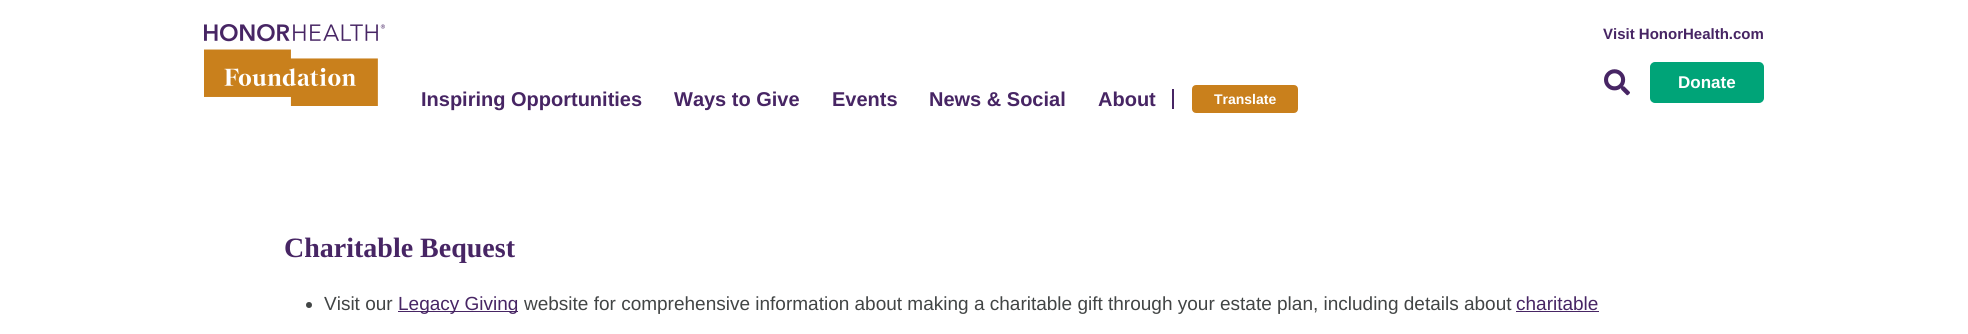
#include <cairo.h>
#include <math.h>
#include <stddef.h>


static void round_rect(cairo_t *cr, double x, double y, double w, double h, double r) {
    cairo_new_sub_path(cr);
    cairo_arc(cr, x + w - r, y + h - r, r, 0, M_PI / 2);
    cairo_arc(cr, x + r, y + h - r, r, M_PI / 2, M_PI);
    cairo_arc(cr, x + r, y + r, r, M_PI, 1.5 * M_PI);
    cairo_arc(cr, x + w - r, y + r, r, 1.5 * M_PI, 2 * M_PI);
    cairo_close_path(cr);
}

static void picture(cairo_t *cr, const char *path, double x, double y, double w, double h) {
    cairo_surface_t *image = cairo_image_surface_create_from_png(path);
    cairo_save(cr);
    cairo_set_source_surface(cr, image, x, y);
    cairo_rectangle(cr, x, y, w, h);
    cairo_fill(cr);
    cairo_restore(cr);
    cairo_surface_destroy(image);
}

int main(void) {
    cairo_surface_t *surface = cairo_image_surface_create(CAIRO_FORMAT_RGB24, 1968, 334);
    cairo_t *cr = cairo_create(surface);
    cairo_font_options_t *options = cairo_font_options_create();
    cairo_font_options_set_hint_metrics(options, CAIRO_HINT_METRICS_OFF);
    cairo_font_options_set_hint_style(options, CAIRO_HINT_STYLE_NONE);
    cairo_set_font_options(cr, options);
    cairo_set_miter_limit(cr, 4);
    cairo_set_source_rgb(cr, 1, 1, 1);
    cairo_paint(cr);
    picture(cr, "img1.png", 204, 24, 181, 82);
    cairo_select_font_face(cr, "Liberation Sans", CAIRO_FONT_SLANT_NORMAL, CAIRO_FONT_WEIGHT_BOLD);
    cairo_set_font_size(cr, 15);
    cairo_set_source_rgb(cr, 0.278, 0.145, 0.392);
    cairo_move_to(cr, 1603, 39);
    cairo_show_text(cr, "Visit HonorHealth.com");
    picture(cr, "img2.png", 1604, 69, 26, 27);
    cairo_set_source_rgb(cr, 0, 0.643, 0.471);
    round_rect(cr, 1651, 63, 112, 39, 4);
    cairo_fill_preserve(cr);
    cairo_stroke(cr);
    cairo_set_font_size(cr, 17);
    cairo_set_source_rgb(cr, 1, 1, 1);
    cairo_move_to(cr, 1678, 88);
    cairo_show_text(cr, "Donate");
    cairo_set_font_size(cr, 20);
    cairo_set_source_rgb(cr, 0.278, 0.145, 0.392);
    cairo_move_to(cr, 421, 106);
    cairo_show_text(cr, "Inspiring Opportunities");
    cairo_move_to(cr, 674, 106);
    cairo_show_text(cr, "Ways to Give");
    cairo_move_to(cr, 832, 106);
    cairo_show_text(cr, "Events");
    cairo_move_to(cr, 929, 106);
    cairo_show_text(cr, "News & Social");
    cairo_move_to(cr, 1098, 106);
    cairo_show_text(cr, "About");
    cairo_rectangle(cr, 1172, 89, 2, 20);
    cairo_fill(cr);
    cairo_set_source_rgb(cr, 0.788, 0.502, 0.11);
    round_rect(cr, 1193, 86, 104, 26, 3);
    cairo_fill_preserve(cr);
    cairo_stroke(cr);
    cairo_set_font_size(cr, 14);
    cairo_set_source_rgb(cr, 1, 1, 1);
    cairo_move_to(cr, 1214, 104);
    cairo_show_text(cr, "Translate");
    cairo_select_font_face(cr, "Liberation Serif", CAIRO_FONT_SLANT_NORMAL, CAIRO_FONT_WEIGHT_BOLD);
    cairo_set_font_size(cr, 28);
    cairo_set_source_rgb(cr, 0.278, 0.145, 0.392);
    cairo_move_to(cr, 284, 257);
    cairo_show_text(cr, "Charitable Bequest");
    cairo_set_source_rgb(cr, 0.259, 0.271, 0.271);
    cairo_new_path(cr);
    cairo_arc(cr, 309, 305, 3, 0, 2 * M_PI);
    cairo_fill(cr);
    cairo_select_font_face(cr, "Liberation Sans", CAIRO_FONT_SLANT_NORMAL, CAIRO_FONT_WEIGHT_NORMAL);
    cairo_set_font_size(cr, 19);
    cairo_move_to(cr, 324, 310);
    cairo_show_text(cr, "Visit our");
    cairo_set_source_rgb(cr, 0.278, 0.145, 0.392);
    cairo_rectangle(cr, 398, 311, 120, 1);
    cairo_fill(cr);
    cairo_move_to(cr, 398, 310);
    cairo_show_text(cr, "Legacy Giving");
    cairo_set_source_rgb(cr, 0.259, 0.271, 0.271);
    cairo_move_to(cr, 524, 310);
    cairo_show_text(cr, "website for comprehensive information about making a charitable gift through your estate plan, including details about");
    cairo_set_source_rgb(cr, 0.278, 0.145, 0.392);
    cairo_move_to(cr, 1516, 310);
    cairo_show_text(cr, "charitable");
    cairo_rectangle(cr, 1516, 311, 83, 1);
    cairo_fill(cr);
    cairo_surface_write_to_png(surface, "page.png");
    cairo_font_options_destroy(options);
    cairo_destroy(cr);
    cairo_surface_destroy(surface);
    return 0;
}
